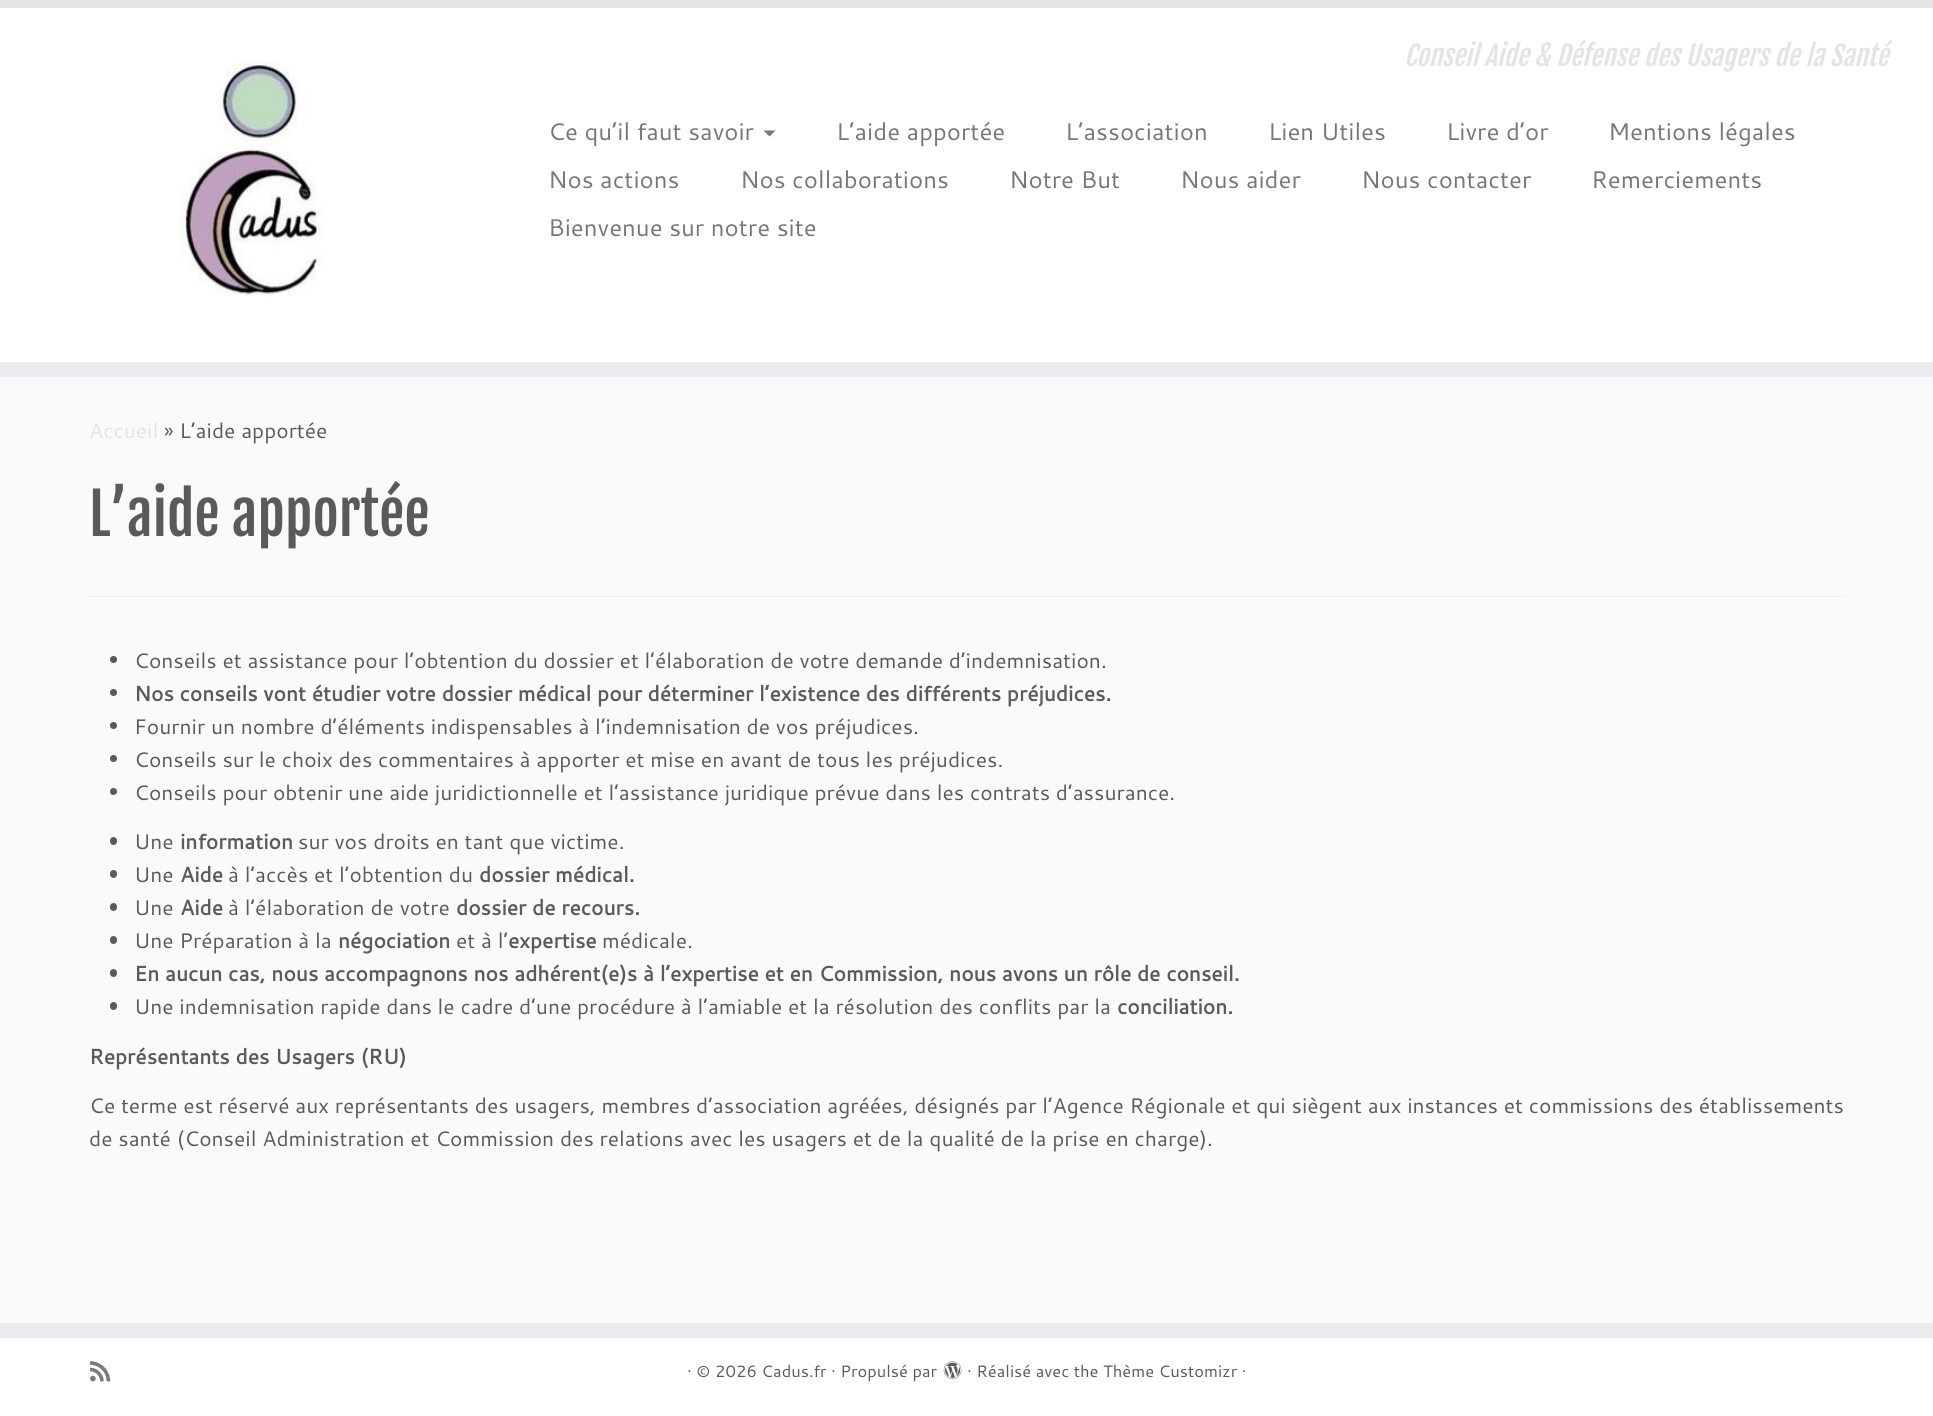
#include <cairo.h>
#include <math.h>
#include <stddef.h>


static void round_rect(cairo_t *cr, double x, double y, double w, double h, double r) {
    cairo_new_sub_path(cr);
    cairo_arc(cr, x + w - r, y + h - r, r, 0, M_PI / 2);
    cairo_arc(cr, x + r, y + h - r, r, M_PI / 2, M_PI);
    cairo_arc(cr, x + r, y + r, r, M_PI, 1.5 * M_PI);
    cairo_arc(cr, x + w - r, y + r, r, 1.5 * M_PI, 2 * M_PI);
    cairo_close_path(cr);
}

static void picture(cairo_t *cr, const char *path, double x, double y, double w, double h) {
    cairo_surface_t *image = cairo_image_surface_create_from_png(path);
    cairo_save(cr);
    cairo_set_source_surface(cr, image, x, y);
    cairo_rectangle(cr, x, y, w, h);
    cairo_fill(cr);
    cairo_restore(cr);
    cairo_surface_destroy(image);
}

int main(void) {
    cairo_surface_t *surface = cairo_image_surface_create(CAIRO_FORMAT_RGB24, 1933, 1416);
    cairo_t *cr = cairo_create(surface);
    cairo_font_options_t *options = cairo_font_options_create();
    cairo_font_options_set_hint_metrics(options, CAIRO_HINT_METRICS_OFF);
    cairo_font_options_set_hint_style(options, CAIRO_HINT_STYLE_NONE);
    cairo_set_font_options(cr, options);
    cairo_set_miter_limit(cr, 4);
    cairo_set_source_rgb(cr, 0.98, 0.98, 0.98);
    cairo_paint(cr);
    cairo_set_source_rgb(cr, 1, 1, 1);
    cairo_rectangle(cr, 0, 8, 1933, 354);
    cairo_fill(cr);
    cairo_set_source_rgb(cr, 0.894, 0.894, 0.894);
    cairo_rectangle(cr, 0, 0, 1933, 8);
    cairo_fill(cr);
    cairo_set_source_rgb(cr, 0.914, 0.918, 0.933);
    cairo_rectangle(cr, 0, 362, 1933, 15);
    cairo_fill(cr);
    picture(cr, "img1.png", 180, 59, 145, 237);
    cairo_select_font_face(cr, "Fjalla One", CAIRO_FONT_SLANT_ITALIC, CAIRO_FONT_WEIGHT_NORMAL);
    cairo_set_font_size(cr, 27);
    cairo_set_source_rgb(cr, 0.894, 0.894, 0.894);
    cairo_move_to(cr, 1404, 66);
    cairo_show_text(cr, "Conseil Aide & Défense des Usagers de la Santé");
    cairo_select_font_face(cr, "Cantarell", CAIRO_FONT_SLANT_NORMAL, CAIRO_FONT_WEIGHT_NORMAL);
    cairo_set_font_size(cr, 24);
    cairo_set_source_rgb(cr, 0.467, 0.467, 0.467);
    cairo_move_to(cr, 548, 140);
    cairo_show_text(cr, "Ce qu’il faut savoir");
    cairo_new_path(cr);
    cairo_move_to(cr, 763.5, 130.5);
    cairo_line_to(cr, 775.5, 130.5);
    cairo_line_to(cr, 769.5, 136.5);
    cairo_close_path(cr);
    cairo_fill(cr);
    cairo_move_to(cr, 836, 140);
    cairo_show_text(cr, "L’aide apportée");
    cairo_move_to(cr, 1065, 140);
    cairo_show_text(cr, "L’association");
    cairo_move_to(cr, 1268, 140);
    cairo_show_text(cr, "Lien Utiles");
    cairo_move_to(cr, 1446, 140);
    cairo_show_text(cr, "Livre d’or");
    cairo_move_to(cr, 1608, 140);
    cairo_show_text(cr, "Mentions légales");
    cairo_move_to(cr, 548, 188);
    cairo_show_text(cr, "Nos actions");
    cairo_move_to(cr, 740, 188);
    cairo_show_text(cr, "Nos collaborations");
    cairo_move_to(cr, 1009, 188);
    cairo_show_text(cr, "Notre But");
    cairo_move_to(cr, 1180, 188);
    cairo_show_text(cr, "Nous aider");
    cairo_move_to(cr, 1361, 188);
    cairo_show_text(cr, "Nous contacter");
    cairo_move_to(cr, 1591, 188);
    cairo_show_text(cr, "Remerciements");
    cairo_move_to(cr, 548, 236);
    cairo_show_text(cr, "Bienvenue sur notre site");
    cairo_set_font_size(cr, 21);
    cairo_set_source_rgb(cr, 0.894, 0.894, 0.894);
    cairo_move_to(cr, 89, 438);
    cairo_show_text(cr, "Accueil");
    cairo_set_source_rgb(cr, 0.353, 0.353, 0.353);
    cairo_move_to(cr, 164, 438);
    cairo_show_text(cr, "» L’aide apportée");
    cairo_select_font_face(cr, "Fjalla One", CAIRO_FONT_SLANT_NORMAL, CAIRO_FONT_WEIGHT_NORMAL);
    cairo_set_font_size(cr, 57);
    cairo_move_to(cr, 89, 536);
    cairo_show_text(cr, "L’aide apportée");
    cairo_set_source_rgb(cr, 0.933, 0.933, 0.933);
    cairo_rectangle(cr, 90, 596, 1755, 1);
    cairo_fill(cr);
    cairo_set_source_rgb(cr, 1, 1, 1);
    cairo_rectangle(cr, 90, 597, 1755, 2);
    cairo_fill(cr);
    cairo_set_source_rgb(cr, 0.353, 0.353, 0.353);
    cairo_arc(cr, 113.5, 659.5, 3.5, 0, 2 * M_PI);
    cairo_fill(cr);
    cairo_select_font_face(cr, "Cantarell", CAIRO_FONT_SLANT_NORMAL, CAIRO_FONT_WEIGHT_NORMAL);
    cairo_set_font_size(cr, 21);
    cairo_move_to(cr, 134, 668);
    cairo_show_text(cr, "Conseils et assistance pour l’obtention du dossier et l’élaboration de votre demande d’indemnisation.");
    cairo_new_path(cr);
    cairo_arc(cr, 113.5, 692.5, 3.5, 0, 2 * M_PI);
    cairo_fill(cr);
    cairo_select_font_face(cr, "Cantarell", CAIRO_FONT_SLANT_NORMAL, CAIRO_FONT_WEIGHT_BOLD);
    cairo_move_to(cr, 134, 701);
    cairo_show_text(cr, "Nos conseils vont étudier votre dossier médical pour déterminer l’existence des différents préjudices.");
    cairo_new_path(cr);
    cairo_arc(cr, 113.5, 725.5, 3.5, 0, 2 * M_PI);
    cairo_fill(cr);
    cairo_select_font_face(cr, "Cantarell", CAIRO_FONT_SLANT_NORMAL, CAIRO_FONT_WEIGHT_NORMAL);
    cairo_move_to(cr, 134, 734);
    cairo_show_text(cr, "Fournir un nombre d’éléments indispensables à l’indemnisation de vos préjudices.");
    cairo_new_path(cr);
    cairo_arc(cr, 113.5, 758.5, 3.5, 0, 2 * M_PI);
    cairo_fill(cr);
    cairo_move_to(cr, 134, 767);
    cairo_show_text(cr, "Conseils sur le choix des commentaires à apporter et mise en avant de tous les préjudices.");
    cairo_new_path(cr);
    cairo_arc(cr, 113.5, 791.5, 3.5, 0, 2 * M_PI);
    cairo_fill(cr);
    cairo_move_to(cr, 134, 800);
    cairo_show_text(cr, "Conseils pour obtenir une aide juridictionnelle et l’assistance juridique prévue dans les contrats d’assurance.");
    round_rect(cr, 110, 837, 7, 8, 3.5);
    cairo_fill(cr);
    cairo_move_to(cr, 134, 849);
    cairo_show_text(cr, "Une");
    cairo_select_font_face(cr, "Cantarell", CAIRO_FONT_SLANT_NORMAL, CAIRO_FONT_WEIGHT_BOLD);
    cairo_move_to(cr, 180, 849);
    cairo_show_text(cr, "information");
    cairo_select_font_face(cr, "Cantarell", CAIRO_FONT_SLANT_NORMAL, CAIRO_FONT_WEIGHT_NORMAL);
    cairo_move_to(cr, 298, 849);
    cairo_show_text(cr, "sur vos droits en tant que victime.");
    round_rect(cr, 110, 870, 7, 8, 3.5);
    cairo_fill(cr);
    cairo_move_to(cr, 134, 882);
    cairo_show_text(cr, "Une");
    cairo_select_font_face(cr, "Cantarell", CAIRO_FONT_SLANT_NORMAL, CAIRO_FONT_WEIGHT_BOLD);
    cairo_move_to(cr, 180, 882);
    cairo_show_text(cr, "Aide");
    cairo_select_font_face(cr, "Cantarell", CAIRO_FONT_SLANT_NORMAL, CAIRO_FONT_WEIGHT_NORMAL);
    cairo_move_to(cr, 228, 882);
    cairo_show_text(cr, "à l’accès et l’obtention du");
    cairo_select_font_face(cr, "Cantarell", CAIRO_FONT_SLANT_NORMAL, CAIRO_FONT_WEIGHT_BOLD);
    cairo_move_to(cr, 479, 882);
    cairo_show_text(cr, "dossier médical.");
    round_rect(cr, 110, 903, 7, 8, 3.5);
    cairo_fill(cr);
    cairo_select_font_face(cr, "Cantarell", CAIRO_FONT_SLANT_NORMAL, CAIRO_FONT_WEIGHT_NORMAL);
    cairo_move_to(cr, 134, 915);
    cairo_show_text(cr, "Une");
    cairo_select_font_face(cr, "Cantarell", CAIRO_FONT_SLANT_NORMAL, CAIRO_FONT_WEIGHT_BOLD);
    cairo_move_to(cr, 180, 915);
    cairo_show_text(cr, "Aide");
    cairo_select_font_face(cr, "Cantarell", CAIRO_FONT_SLANT_NORMAL, CAIRO_FONT_WEIGHT_NORMAL);
    cairo_move_to(cr, 228, 915);
    cairo_show_text(cr, "à l’élaboration de votre");
    cairo_select_font_face(cr, "Cantarell", CAIRO_FONT_SLANT_NORMAL, CAIRO_FONT_WEIGHT_BOLD);
    cairo_move_to(cr, 456, 915);
    cairo_show_text(cr, "dossier de recours.");
    round_rect(cr, 110, 936, 7, 8, 3.5);
    cairo_fill(cr);
    cairo_select_font_face(cr, "Cantarell", CAIRO_FONT_SLANT_NORMAL, CAIRO_FONT_WEIGHT_NORMAL);
    cairo_move_to(cr, 134, 948);
    cairo_show_text(cr, "Une Préparation à la");
    cairo_select_font_face(cr, "Cantarell", CAIRO_FONT_SLANT_NORMAL, CAIRO_FONT_WEIGHT_BOLD);
    cairo_move_to(cr, 338, 948);
    cairo_show_text(cr, "négociation");
    cairo_select_font_face(cr, "Cantarell", CAIRO_FONT_SLANT_NORMAL, CAIRO_FONT_WEIGHT_NORMAL);
    cairo_move_to(cr, 456, 948);
    cairo_show_text(cr, "et à l’");
    cairo_select_font_face(cr, "Cantarell", CAIRO_FONT_SLANT_NORMAL, CAIRO_FONT_WEIGHT_BOLD);
    cairo_move_to(cr, 508, 948);
    cairo_show_text(cr, "expertise");
    cairo_select_font_face(cr, "Cantarell", CAIRO_FONT_SLANT_NORMAL, CAIRO_FONT_WEIGHT_NORMAL);
    cairo_move_to(cr, 602, 948);
    cairo_show_text(cr, "médicale.");
    round_rect(cr, 110, 969, 7, 8, 3.5);
    cairo_fill(cr);
    cairo_select_font_face(cr, "Cantarell", CAIRO_FONT_SLANT_NORMAL, CAIRO_FONT_WEIGHT_BOLD);
    cairo_move_to(cr, 134, 981);
    cairo_show_text(cr, "En aucun cas, nous accompagnons nos adhérent(e)s à l’expertise et en Commission, nous avons un rôle de conseil.");
    round_rect(cr, 110, 1002, 7, 8, 3.5);
    cairo_fill(cr);
    cairo_select_font_face(cr, "Cantarell", CAIRO_FONT_SLANT_NORMAL, CAIRO_FONT_WEIGHT_NORMAL);
    cairo_move_to(cr, 134, 1014);
    cairo_show_text(cr, "Une indemnisation rapide dans le cadre d’une procédure à l’amiable et la résolution des conflits par la");
    cairo_select_font_face(cr, "Cantarell", CAIRO_FONT_SLANT_NORMAL, CAIRO_FONT_WEIGHT_BOLD);
    cairo_move_to(cr, 1117, 1014);
    cairo_show_text(cr, "conciliation.");
    cairo_move_to(cr, 89, 1064);
    cairo_show_text(cr, "Représentants des Usagers (RU)");
    cairo_select_font_face(cr, "Cantarell", CAIRO_FONT_SLANT_NORMAL, CAIRO_FONT_WEIGHT_NORMAL);
    cairo_move_to(cr, 89, 1113);
    cairo_show_text(cr, "Ce terme est réservé aux représentants des usagers, membres d’association agréées, désignés par l’Agence Régionale et qui siègent aux instances et commissions des établissements");
    cairo_move_to(cr, 89, 1146);
    cairo_show_text(cr, "de santé (Conseil Administration et Commission des relations avec les usagers et de la qualité de la prise en charge).");
    cairo_set_source_rgb(cr, 0.914, 0.918, 0.933);
    cairo_rectangle(cr, 0, 1323, 1933, 15);
    cairo_fill(cr);
    cairo_set_source_rgb(cr, 1, 1, 1);
    cairo_rectangle(cr, 0, 1338, 1933, 78);
    cairo_fill(cr);
    picture(cr, "img2.png", 90, 1361, 21, 21);
    cairo_set_font_size(cr, 16.5);
    cairo_set_source_rgb(cr, 0.353, 0.353, 0.353);
    cairo_move_to(cr, 687, 1377);
    cairo_show_text(cr, "· © 2026 Cadus.fr · Propulsé par");
    picture(cr, "img3.png", 943, 1361, 19, 18);
    cairo_move_to(cr, 967, 1377);
    cairo_show_text(cr, "· Réalisé avec the Thème Customizr ·");
    cairo_surface_write_to_png(surface, "page.png");
    cairo_font_options_destroy(options);
    cairo_destroy(cr);
    cairo_surface_destroy(surface);
    return 0;
}
